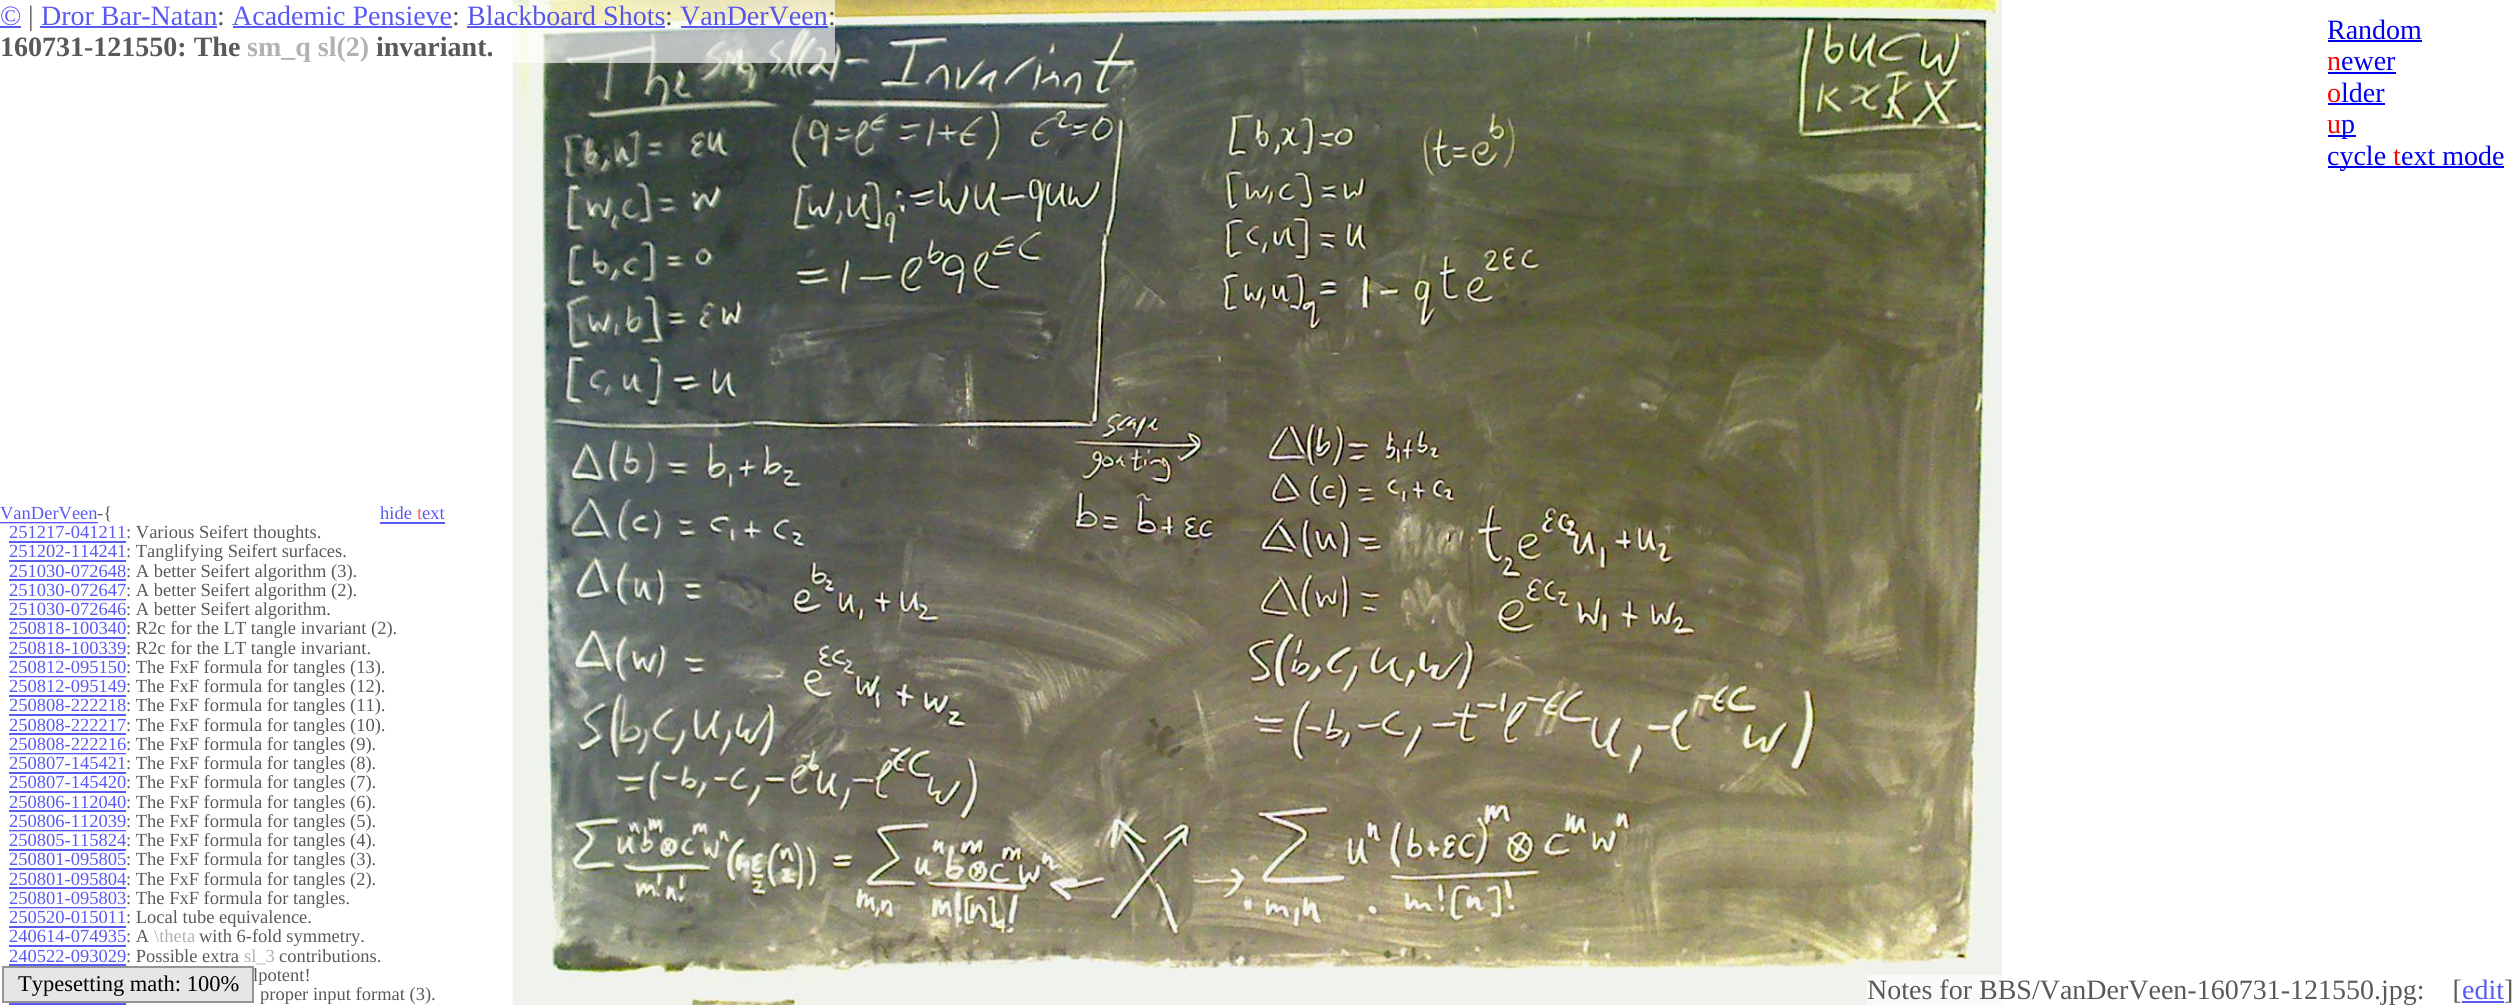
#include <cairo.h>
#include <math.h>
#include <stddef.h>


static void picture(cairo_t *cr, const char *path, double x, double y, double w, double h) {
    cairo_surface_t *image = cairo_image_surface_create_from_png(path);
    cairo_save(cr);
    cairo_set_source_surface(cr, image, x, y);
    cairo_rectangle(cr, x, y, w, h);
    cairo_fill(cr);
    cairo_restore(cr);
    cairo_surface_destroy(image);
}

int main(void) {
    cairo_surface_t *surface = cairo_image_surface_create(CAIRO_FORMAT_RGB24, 2513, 1005);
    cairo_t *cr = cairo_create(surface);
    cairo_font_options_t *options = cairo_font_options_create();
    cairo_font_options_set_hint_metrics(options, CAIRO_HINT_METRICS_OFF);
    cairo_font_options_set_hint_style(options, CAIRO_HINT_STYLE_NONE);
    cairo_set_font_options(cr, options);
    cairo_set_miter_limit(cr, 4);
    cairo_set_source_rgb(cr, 1, 1, 1);
    cairo_paint(cr);
    picture(cr, "img1.png", 512, 0, 1490, 1005);
    cairo_set_source_rgba(cr, 1, 1, 1, 0.65);
    cairo_rectangle(cr, 512, 0, 323, 63);
    cairo_fill(cr);
    cairo_select_font_face(cr, "Liberation Serif", CAIRO_FONT_SLANT_NORMAL, CAIRO_FONT_WEIGHT_NORMAL);
    cairo_set_font_size(cr, 28);
    cairo_set_source_rgb(cr, 0.349, 0.349, 0.957);
    cairo_move_to(cr, 0, 25);
    cairo_show_text(cr, "©");
    cairo_rectangle(cr, 0, 26, 21, 2);
    cairo_fill(cr);
    cairo_set_source_rgb(cr, 0.349, 0.349, 0.349);
    cairo_move_to(cr, 28, 25);
    cairo_show_text(cr, "|");
    cairo_set_source_rgb(cr, 0.349, 0.349, 0.957);
    cairo_move_to(cr, 41, 25);
    cairo_show_text(cr, "Dror Bar-Natan");
    cairo_rectangle(cr, 40, 26, 177, 2);
    cairo_fill(cr);
    cairo_set_source_rgb(cr, 0.349, 0.349, 0.349);
    cairo_move_to(cr, 217, 25);
    cairo_show_text(cr, ":");
    cairo_set_source_rgb(cr, 0.349, 0.349, 0.957);
    cairo_move_to(cr, 232, 25);
    cairo_show_text(cr, "Academic Pensieve");
    cairo_rectangle(cr, 233, 26, 219, 2);
    cairo_fill(cr);
    cairo_set_source_rgb(cr, 0.349, 0.349, 0.349);
    cairo_move_to(cr, 452, 25);
    cairo_show_text(cr, ":");
    cairo_set_source_rgb(cr, 0.341, 0.337, 0.91);
    cairo_move_to(cr, 467, 25);
    cairo_show_text(cr, "Blackboard Shots");
    cairo_set_source_rgba(cr, 0, 0, 0.933, 0.65);
    cairo_rectangle(cr, 467, 26, 198, 2);
    cairo_fill(cr);
    cairo_set_source_rgb(cr, 0.337, 0.333, 0.298);
    cairo_move_to(cr, 665, 25);
    cairo_show_text(cr, ":");
    cairo_set_source_rgb(cr, 0.341, 0.337, 0.91);
    cairo_move_to(cr, 680, 25);
    cairo_show_text(cr, "VanDerVeen");
    cairo_set_source_rgba(cr, 0, 0, 0.933, 0.65);
    cairo_rectangle(cr, 681, 26, 147, 2);
    cairo_fill(cr);
    cairo_set_source_rgb(cr, 0.337, 0.333, 0.298);
    cairo_move_to(cr, 828, 25);
    cairo_show_text(cr, ":");
    cairo_select_font_face(cr, "Liberation Serif", CAIRO_FONT_SLANT_NORMAL, CAIRO_FONT_WEIGHT_BOLD);
    cairo_set_source_rgb(cr, 0.349, 0.349, 0.349);
    cairo_move_to(cr, 0, 56);
    cairo_show_text(cr, "160731-121550: The");
    cairo_set_source_rgb(cr, 0.698, 0.698, 0.698);
    cairo_move_to(cr, 247, 56);
    cairo_show_text(cr, "sm_q sl(2)");
    cairo_set_source_rgb(cr, 0.349, 0.349, 0.349);
    cairo_move_to(cr, 376, 56);
    cairo_show_text(cr, "invariant.");
    cairo_select_font_face(cr, "Liberation Serif", CAIRO_FONT_SLANT_NORMAL, CAIRO_FONT_WEIGHT_NORMAL);
    cairo_set_source_rgb(cr, 0, 0, 0.933);
    cairo_move_to(cr, 2327, 39);
    cairo_show_text(cr, "Random");
    cairo_rectangle(cr, 2328, 40, 94, 2);
    cairo_fill(cr);
    cairo_set_source_rgb(cr, 1, 0, 0);
    cairo_move_to(cr, 2327, 70);
    cairo_show_text(cr, "n");
    cairo_set_source_rgb(cr, 0, 0, 0.933);
    cairo_move_to(cr, 2341, 70);
    cairo_show_text(cr, "ewer");
    cairo_rectangle(cr, 2328, 72, 68, 2);
    cairo_fill(cr);
    cairo_set_source_rgb(cr, 1, 0, 0);
    cairo_move_to(cr, 2327, 102);
    cairo_show_text(cr, "o");
    cairo_set_source_rgb(cr, 0, 0, 0.933);
    cairo_rectangle(cr, 2328, 103, 57, 2);
    cairo_fill(cr);
    cairo_move_to(cr, 2341, 102);
    cairo_show_text(cr, "lder");
    cairo_set_source_rgb(cr, 1, 0, 0);
    cairo_move_to(cr, 2327, 133);
    cairo_show_text(cr, "u");
    cairo_set_source_rgb(cr, 0, 0, 0.933);
    cairo_rectangle(cr, 2328, 135, 28, 2);
    cairo_fill(cr);
    cairo_move_to(cr, 2341, 133);
    cairo_show_text(cr, "p");
    cairo_rectangle(cr, 2328, 166, 176, 2);
    cairo_fill(cr);
    cairo_move_to(cr, 2327, 165);
    cairo_show_text(cr, "cycle");
    cairo_set_source_rgb(cr, 1, 0, 0);
    cairo_move_to(cr, 2393, 165);
    cairo_show_text(cr, "t");
    cairo_set_source_rgb(cr, 0, 0, 0.933);
    cairo_move_to(cr, 2401, 165);
    cairo_show_text(cr, "ext mode");
    cairo_set_font_size(cr, 18.5);
    cairo_set_source_rgb(cr, 0.349, 0.349, 0.957);
    cairo_move_to(cr, 0, 519);
    cairo_show_text(cr, "VanDerVeen");
    cairo_set_source_rgb(cr, 0.349, 0.349, 0.349);
    cairo_move_to(cr, 97, 519);
    cairo_show_text(cr, "-{");
    cairo_set_source_rgb(cr, 0.349, 0.349, 0.957);
    cairo_rectangle(cr, 0, 522, 98, 1);
    cairo_fill(cr);
    cairo_set_source_rgb(cr, 0.773, 0.773, 0.984);
    cairo_rectangle(cr, 0, 523, 98, 1);
    cairo_fill(cr);
    cairo_set_source_rgb(cr, 0.349, 0.349, 0.957);
    cairo_move_to(cr, 380, 519);
    cairo_show_text(cr, "hide");
    cairo_set_source_rgb(cr, 1, 0.349, 0.349);
    cairo_move_to(cr, 417, 519);
    cairo_show_text(cr, "t");
    cairo_set_source_rgb(cr, 0.349, 0.349, 0.957);
    cairo_rectangle(cr, 380, 522, 65, 2);
    cairo_fill(cr);
    cairo_move_to(cr, 422, 519);
    cairo_show_text(cr, "ext");
    cairo_move_to(cr, 9, 538);
    cairo_show_text(cr, "251217-041211");
    cairo_rectangle(cr, 9, 541, 117, 2);
    cairo_fill(cr);
    cairo_set_source_rgb(cr, 0.349, 0.349, 0.349);
    cairo_move_to(cr, 126, 538);
    cairo_show_text(cr, ": Various Seifert thoughts.");
    cairo_set_source_rgb(cr, 0.349, 0.349, 0.957);
    cairo_move_to(cr, 9, 557);
    cairo_show_text(cr, "251202-114241");
    cairo_rectangle(cr, 9, 560, 117, 2);
    cairo_fill(cr);
    cairo_set_source_rgb(cr, 0.349, 0.349, 0.349);
    cairo_move_to(cr, 126, 557);
    cairo_show_text(cr, ": Tanglifying Seifert surfaces.");
    cairo_set_source_rgb(cr, 0.349, 0.349, 0.957);
    cairo_move_to(cr, 9, 577);
    cairo_show_text(cr, "251030-072648");
    cairo_rectangle(cr, 9, 579, 117, 2);
    cairo_fill(cr);
    cairo_set_source_rgb(cr, 0.349, 0.349, 0.349);
    cairo_move_to(cr, 126, 577);
    cairo_show_text(cr, ": A better Seifert algorithm (3).");
    cairo_set_source_rgb(cr, 0.349, 0.349, 0.957);
    cairo_move_to(cr, 9, 596);
    cairo_show_text(cr, "251030-072647");
    cairo_rectangle(cr, 9, 599, 117, 1);
    cairo_fill(cr);
    cairo_set_source_rgb(cr, 0.773, 0.773, 0.984);
    cairo_rectangle(cr, 9, 600, 117, 1);
    cairo_fill(cr);
    cairo_set_source_rgb(cr, 0.349, 0.349, 0.349);
    cairo_move_to(cr, 126, 596);
    cairo_show_text(cr, ": A better Seifert algorithm (2).");
    cairo_set_source_rgb(cr, 0.349, 0.349, 0.957);
    cairo_move_to(cr, 9, 615);
    cairo_show_text(cr, "251030-072646");
    cairo_rectangle(cr, 9, 618, 117, 2);
    cairo_fill(cr);
    cairo_set_source_rgb(cr, 0.349, 0.349, 0.349);
    cairo_move_to(cr, 126, 615);
    cairo_show_text(cr, ": A better Seifert algorithm.");
    cairo_set_source_rgb(cr, 0.349, 0.349, 0.957);
    cairo_move_to(cr, 9, 634);
    cairo_show_text(cr, "250818-100340");
    cairo_rectangle(cr, 9, 637, 117, 2);
    cairo_fill(cr);
    cairo_set_source_rgb(cr, 0.349, 0.349, 0.349);
    cairo_move_to(cr, 126, 634);
    cairo_show_text(cr, ": R2c for the LT tangle invariant (2).");
    cairo_set_source_rgb(cr, 0.349, 0.349, 0.957);
    cairo_move_to(cr, 9, 654);
    cairo_show_text(cr, "250818-100339");
    cairo_rectangle(cr, 9, 656, 117, 2);
    cairo_fill(cr);
    cairo_set_source_rgb(cr, 0.349, 0.349, 0.349);
    cairo_move_to(cr, 126, 654);
    cairo_show_text(cr, ": R2c for the LT tangle invariant.");
    cairo_set_source_rgb(cr, 0.349, 0.349, 0.957);
    cairo_move_to(cr, 9, 673);
    cairo_show_text(cr, "250812-095150");
    cairo_rectangle(cr, 9, 676, 117, 1);
    cairo_fill(cr);
    cairo_set_source_rgb(cr, 0.773, 0.773, 0.984);
    cairo_rectangle(cr, 9, 677, 117, 1);
    cairo_fill(cr);
    cairo_set_source_rgb(cr, 0.349, 0.349, 0.349);
    cairo_move_to(cr, 126, 673);
    cairo_show_text(cr, ": The FxF formula for tangles (13).");
    cairo_set_source_rgb(cr, 0.349, 0.349, 0.957);
    cairo_move_to(cr, 9, 692);
    cairo_show_text(cr, "250812-095149");
    cairo_rectangle(cr, 9, 695, 117, 2);
    cairo_fill(cr);
    cairo_set_source_rgb(cr, 0.349, 0.349, 0.349);
    cairo_move_to(cr, 126, 692);
    cairo_show_text(cr, ": The FxF formula for tangles (12).");
    cairo_set_source_rgb(cr, 0.349, 0.349, 0.957);
    cairo_move_to(cr, 9, 711);
    cairo_show_text(cr, "250808-222218");
    cairo_rectangle(cr, 9, 714, 117, 2);
    cairo_fill(cr);
    cairo_set_source_rgb(cr, 0.349, 0.349, 0.349);
    cairo_move_to(cr, 126, 711);
    cairo_show_text(cr, ": The FxF formula for tangles (11).");
    cairo_set_source_rgb(cr, 0.349, 0.349, 0.957);
    cairo_move_to(cr, 9, 731);
    cairo_show_text(cr, "250808-222217");
    cairo_rectangle(cr, 9, 733, 117, 2);
    cairo_fill(cr);
    cairo_set_source_rgb(cr, 0.349, 0.349, 0.349);
    cairo_move_to(cr, 126, 731);
    cairo_show_text(cr, ": The FxF formula for tangles (10).");
    cairo_set_source_rgb(cr, 0.349, 0.349, 0.957);
    cairo_move_to(cr, 9, 750);
    cairo_show_text(cr, "250808-222216");
    cairo_rectangle(cr, 9, 753, 117, 1);
    cairo_fill(cr);
    cairo_set_source_rgb(cr, 0.773, 0.773, 0.984);
    cairo_rectangle(cr, 9, 754, 117, 1);
    cairo_fill(cr);
    cairo_set_source_rgb(cr, 0.349, 0.349, 0.349);
    cairo_move_to(cr, 126, 750);
    cairo_show_text(cr, ": The FxF formula for tangles (9).");
    cairo_set_source_rgb(cr, 0.349, 0.349, 0.957);
    cairo_move_to(cr, 9, 769);
    cairo_show_text(cr, "250807-145421");
    cairo_rectangle(cr, 9, 772, 117, 2);
    cairo_fill(cr);
    cairo_set_source_rgb(cr, 0.349, 0.349, 0.349);
    cairo_move_to(cr, 126, 769);
    cairo_show_text(cr, ": The FxF formula for tangles (8).");
    cairo_set_source_rgb(cr, 0.349, 0.349, 0.957);
    cairo_move_to(cr, 9, 788);
    cairo_show_text(cr, "250807-145420");
    cairo_rectangle(cr, 9, 791, 117, 2);
    cairo_fill(cr);
    cairo_set_source_rgb(cr, 0.349, 0.349, 0.349);
    cairo_move_to(cr, 126, 788);
    cairo_show_text(cr, ": The FxF formula for tangles (7).");
    cairo_set_source_rgb(cr, 0.349, 0.349, 0.957);
    cairo_move_to(cr, 9, 808);
    cairo_show_text(cr, "250806-112040");
    cairo_rectangle(cr, 9, 810, 117, 2);
    cairo_fill(cr);
    cairo_set_source_rgb(cr, 0.349, 0.349, 0.349);
    cairo_move_to(cr, 126, 808);
    cairo_show_text(cr, ": The FxF formula for tangles (6).");
    cairo_set_source_rgb(cr, 0.349, 0.349, 0.957);
    cairo_move_to(cr, 9, 827);
    cairo_show_text(cr, "250806-112039");
    cairo_rectangle(cr, 9, 830, 117, 1);
    cairo_fill(cr);
    cairo_set_source_rgb(cr, 0.773, 0.773, 0.984);
    cairo_rectangle(cr, 9, 831, 117, 1);
    cairo_fill(cr);
    cairo_set_source_rgb(cr, 0.349, 0.349, 0.349);
    cairo_move_to(cr, 126, 827);
    cairo_show_text(cr, ": The FxF formula for tangles (5).");
    cairo_set_source_rgb(cr, 0.349, 0.349, 0.957);
    cairo_move_to(cr, 9, 846);
    cairo_show_text(cr, "250805-115824");
    cairo_rectangle(cr, 9, 849, 117, 2);
    cairo_fill(cr);
    cairo_set_source_rgb(cr, 0.349, 0.349, 0.349);
    cairo_move_to(cr, 126, 846);
    cairo_show_text(cr, ": The FxF formula for tangles (4).");
    cairo_set_source_rgb(cr, 0.349, 0.349, 0.957);
    cairo_move_to(cr, 9, 865);
    cairo_show_text(cr, "250801-095805");
    cairo_rectangle(cr, 9, 868, 117, 2);
    cairo_fill(cr);
    cairo_set_source_rgb(cr, 0.349, 0.349, 0.349);
    cairo_move_to(cr, 126, 865);
    cairo_show_text(cr, ": The FxF formula for tangles (3).");
    cairo_set_source_rgb(cr, 0.349, 0.349, 0.957);
    cairo_move_to(cr, 9, 885);
    cairo_show_text(cr, "250801-095804");
    cairo_rectangle(cr, 9, 887, 117, 2);
    cairo_fill(cr);
    cairo_set_source_rgb(cr, 0.349, 0.349, 0.349);
    cairo_move_to(cr, 126, 885);
    cairo_show_text(cr, ": The FxF formula for tangles (2).");
    cairo_set_source_rgb(cr, 0.349, 0.349, 0.957);
    cairo_move_to(cr, 9, 904);
    cairo_show_text(cr, "250801-095803");
    cairo_rectangle(cr, 9, 907, 117, 1);
    cairo_fill(cr);
    cairo_set_source_rgb(cr, 0.773, 0.773, 0.984);
    cairo_rectangle(cr, 9, 908, 117, 1);
    cairo_fill(cr);
    cairo_set_source_rgb(cr, 0.349, 0.349, 0.349);
    cairo_move_to(cr, 126, 904);
    cairo_show_text(cr, ": The FxF formula for tangles.");
    cairo_set_source_rgb(cr, 0.349, 0.349, 0.957);
    cairo_move_to(cr, 9, 923);
    cairo_show_text(cr, "250520-015011");
    cairo_rectangle(cr, 9, 926, 117, 2);
    cairo_fill(cr);
    cairo_set_source_rgb(cr, 0.349, 0.349, 0.349);
    cairo_move_to(cr, 126, 923);
    cairo_show_text(cr, ": Local tube equivalence.");
    cairo_set_source_rgb(cr, 0.349, 0.349, 0.957);
    cairo_move_to(cr, 9, 942);
    cairo_show_text(cr, "240614-074935");
    cairo_rectangle(cr, 9, 945, 117, 2);
    cairo_fill(cr);
    cairo_set_source_rgb(cr, 0.349, 0.349, 0.349);
    cairo_move_to(cr, 126, 942);
    cairo_show_text(cr, ": A");
    cairo_set_source_rgb(cr, 0.698, 0.698, 0.698);
    cairo_move_to(cr, 154, 942);
    cairo_show_text(cr, "\\theta");
    cairo_set_source_rgb(cr, 0.349, 0.349, 0.349);
    cairo_move_to(cr, 199, 942);
    cairo_show_text(cr, "with 6-fold symmetry.");
    cairo_set_source_rgb(cr, 0.349, 0.349, 0.957);
    cairo_move_to(cr, 9, 962);
    cairo_show_text(cr, "240522-093029");
    cairo_rectangle(cr, 9, 964, 117, 2);
    cairo_fill(cr);
    cairo_set_source_rgb(cr, 0.349, 0.349, 0.349);
    cairo_move_to(cr, 126, 962);
    cairo_show_text(cr, ": Possible extra");
    cairo_set_source_rgb(cr, 0.698, 0.698, 0.698);
    cairo_move_to(cr, 244, 962);
    cairo_show_text(cr, "sl_3");
    cairo_set_source_rgb(cr, 0.349, 0.349, 0.349);
    cairo_move_to(cr, 279, 962);
    cairo_show_text(cr, "contributions.");
    cairo_move_to(cr, 253, 981);
    cairo_show_text(cr, "lpotent!");
    cairo_set_source_rgb(cr, 0.349, 0.349, 0.957);
    cairo_rectangle(cr, 9, 1003, 117, 2);
    cairo_fill(cr);
    cairo_set_source_rgb(cr, 0.349, 0.349, 0.349);
    cairo_move_to(cr, 260, 1000);
    cairo_show_text(cr, "proper input format (3).");
    cairo_set_source_rgb(cr, 0.902, 0.902, 0.902);
    cairo_rectangle(cr, 3, 967, 250, 35);
    cairo_fill_preserve(cr);
    cairo_set_source_rgb(cr, 0.584, 0.584, 0.584);
    cairo_stroke(cr);
    cairo_set_font_size(cr, 22.5);
    cairo_set_source_rgb(cr, 0, 0, 0);
    cairo_move_to(cr, 18, 991);
    cairo_show_text(cr, "Typesetting math: 100%");
    cairo_set_source_rgba(cr, 1, 1, 1, 0.65);
    cairo_rectangle(cr, 1867, 975, 135, 30);
    cairo_fill(cr);
    cairo_set_font_size(cr, 28);
    cairo_set_source_rgb(cr, 0.349, 0.349, 0.349);
    cairo_move_to(cr, 1867, 999);
    cairo_show_text(cr, "Notes for BBS/VanDerVeen-160731-121550.jpg:    [");
    cairo_set_source_rgb(cr, 0.349, 0.349, 0.957);
    cairo_move_to(cr, 2462, 999);
    cairo_show_text(cr, "edit");
    cairo_rectangle(cr, 2462, 1001, 42, 2);
    cairo_fill(cr);
    cairo_set_source_rgb(cr, 0.349, 0.349, 0.349);
    cairo_move_to(cr, 2504, 999);
    cairo_show_text(cr, "]");
    cairo_surface_write_to_png(surface, "page.png");
    cairo_font_options_destroy(options);
    cairo_destroy(cr);
    cairo_surface_destroy(surface);
    return 0;
}
